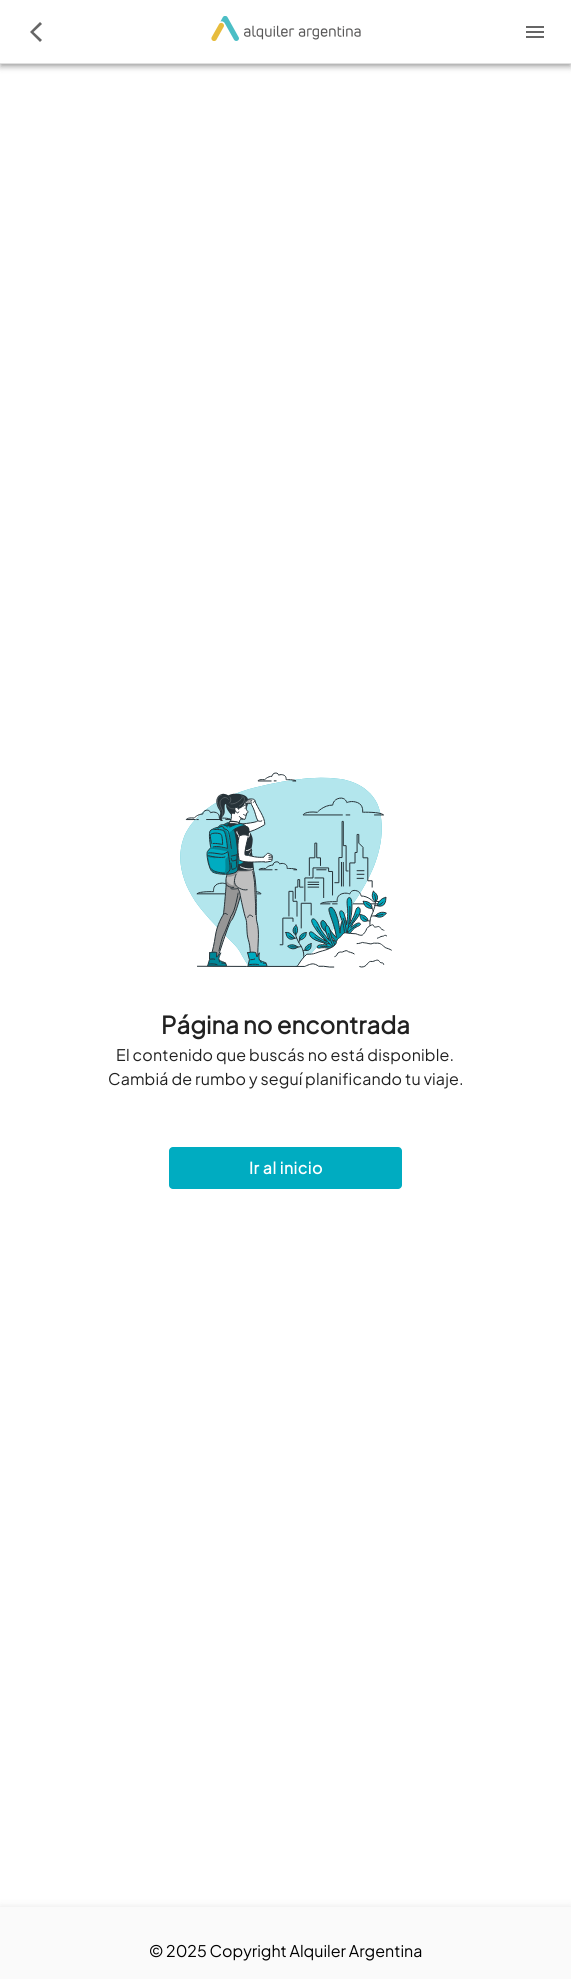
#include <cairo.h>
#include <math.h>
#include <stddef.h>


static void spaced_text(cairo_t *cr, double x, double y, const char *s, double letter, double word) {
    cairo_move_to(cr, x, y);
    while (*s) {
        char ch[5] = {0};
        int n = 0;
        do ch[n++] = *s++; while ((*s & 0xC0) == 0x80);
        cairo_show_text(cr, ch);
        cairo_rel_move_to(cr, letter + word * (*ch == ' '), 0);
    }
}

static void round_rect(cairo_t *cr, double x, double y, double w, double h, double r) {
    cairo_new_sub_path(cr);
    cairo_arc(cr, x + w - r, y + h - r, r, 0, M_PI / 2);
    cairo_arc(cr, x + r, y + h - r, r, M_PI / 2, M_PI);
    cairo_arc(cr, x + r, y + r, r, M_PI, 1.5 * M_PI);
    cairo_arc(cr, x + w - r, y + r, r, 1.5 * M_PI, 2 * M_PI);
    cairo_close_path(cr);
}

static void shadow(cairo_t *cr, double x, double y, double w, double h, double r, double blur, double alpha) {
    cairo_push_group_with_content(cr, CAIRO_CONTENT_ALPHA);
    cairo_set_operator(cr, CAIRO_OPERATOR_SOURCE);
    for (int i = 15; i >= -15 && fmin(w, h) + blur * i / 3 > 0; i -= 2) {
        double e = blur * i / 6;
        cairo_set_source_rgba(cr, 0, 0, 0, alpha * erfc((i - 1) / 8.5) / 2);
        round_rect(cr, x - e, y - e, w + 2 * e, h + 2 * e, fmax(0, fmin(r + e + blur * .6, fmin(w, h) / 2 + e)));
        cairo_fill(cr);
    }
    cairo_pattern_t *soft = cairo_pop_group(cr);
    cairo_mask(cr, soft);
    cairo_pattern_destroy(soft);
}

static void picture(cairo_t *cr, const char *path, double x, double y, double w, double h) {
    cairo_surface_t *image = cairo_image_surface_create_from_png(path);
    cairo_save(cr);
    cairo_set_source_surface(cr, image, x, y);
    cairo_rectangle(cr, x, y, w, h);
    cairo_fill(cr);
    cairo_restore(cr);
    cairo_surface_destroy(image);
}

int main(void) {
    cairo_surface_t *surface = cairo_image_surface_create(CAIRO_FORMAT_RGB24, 571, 1979);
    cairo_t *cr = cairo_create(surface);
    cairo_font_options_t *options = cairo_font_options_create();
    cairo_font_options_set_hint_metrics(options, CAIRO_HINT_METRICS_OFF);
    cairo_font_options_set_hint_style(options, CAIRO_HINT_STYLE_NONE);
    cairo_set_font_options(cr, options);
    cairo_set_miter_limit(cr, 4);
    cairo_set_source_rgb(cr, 1, 1, 1);
    cairo_paint(cr);
    cairo_set_source_rgb(cr, 0, 0, 0);
    shadow(cr, 0, 1, 571, 64, 0, 5, 0.12);
    shadow(cr, 0, 4, 571, 64, 0, 2.5, 0.14);
    shadow(cr, 1, 3, 569, 62, 0, 2, 0.2);
    cairo_set_source_rgb(cr, 1, 1, 1);
    cairo_rectangle(cr, 0, 0, 571, 63);
    cairo_fill(cr);
    cairo_set_source_rgb(cr, 0.878, 0.878, 0.878);
    cairo_rectangle(cr, 0, 63, 571, 1);
    cairo_fill(cr);
    cairo_set_source_rgb(cr, 0.4, 0.4, 0.4);
    cairo_new_path(cr);
    cairo_move_to(cr, 42, 24);
    cairo_line_to(cr, 40, 22);
    cairo_line_to(cr, 30, 32);
    cairo_line_to(cr, 40, 42);
    cairo_line_to(cr, 42, 40);
    cairo_line_to(cr, 33.5, 32);
    cairo_close_path(cr);
    cairo_fill(cr);
    picture(cr, "img1.png", 211, 16, 150, 25);
    picture(cr, "img2.png", 526, 26, 18, 12);
    picture(cr, "img3.png", 180, 772, 212, 196);
    cairo_select_font_face(cr, "Plus Jakarta Sans", CAIRO_FONT_SLANT_NORMAL, CAIRO_FONT_WEIGHT_BOLD);
    cairo_set_font_size(cr, 24);
    cairo_set_source_rgb(cr, 0.129, 0.129, 0.129);
    cairo_move_to(cr, 161, 1034);
    cairo_show_text(cr, "Página no encontrada");
    cairo_select_font_face(cr, "Plus Jakarta Sans", CAIRO_FONT_SLANT_NORMAL, CAIRO_FONT_WEIGHT_NORMAL);
    cairo_set_font_size(cr, 16);
    spaced_text(cr, 116, 1061, "El contenido que buscás no está disponible.", 0.15, 0);
    spaced_text(cr, 108, 1085, "Cambiá de rumbo y seguí planificando tu viaje.", 0.15, 0);
    cairo_set_source_rgb(cr, 0, 0.675, 0.757);
    round_rect(cr, 169, 1147, 233, 42, 4);
    cairo_fill(cr);
    cairo_select_font_face(cr, "Plus Jakarta Sans", CAIRO_FONT_SLANT_NORMAL, CAIRO_FONT_WEIGHT_BOLD);
    cairo_set_source_rgb(cr, 1, 1, 1);
    spaced_text(cr, 249, 1174, "Ir al inicio", 0.5, 0);
    cairo_set_source_rgb(cr, 0, 0, 0);
    shadow(cr, 0, 1908, 571, 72, 0, 5, 0.12);
    cairo_set_source_rgb(cr, 0.98, 0.98, 0.98);
    cairo_rectangle(cr, 0, 1907, 571, 72);
    cairo_fill(cr);
    cairo_select_font_face(cr, "Plus Jakarta Sans", CAIRO_FONT_SLANT_NORMAL, CAIRO_FONT_WEIGHT_NORMAL);
    cairo_set_source_rgb(cr, 0, 0, 0);
    cairo_move_to(cr, 149, 1957);
    cairo_show_text(cr, "© 2025 Copyright Alquiler Argentina");
    cairo_surface_write_to_png(surface, "page.png");
    cairo_font_options_destroy(options);
    cairo_destroy(cr);
    cairo_surface_destroy(surface);
    return 0;
}
